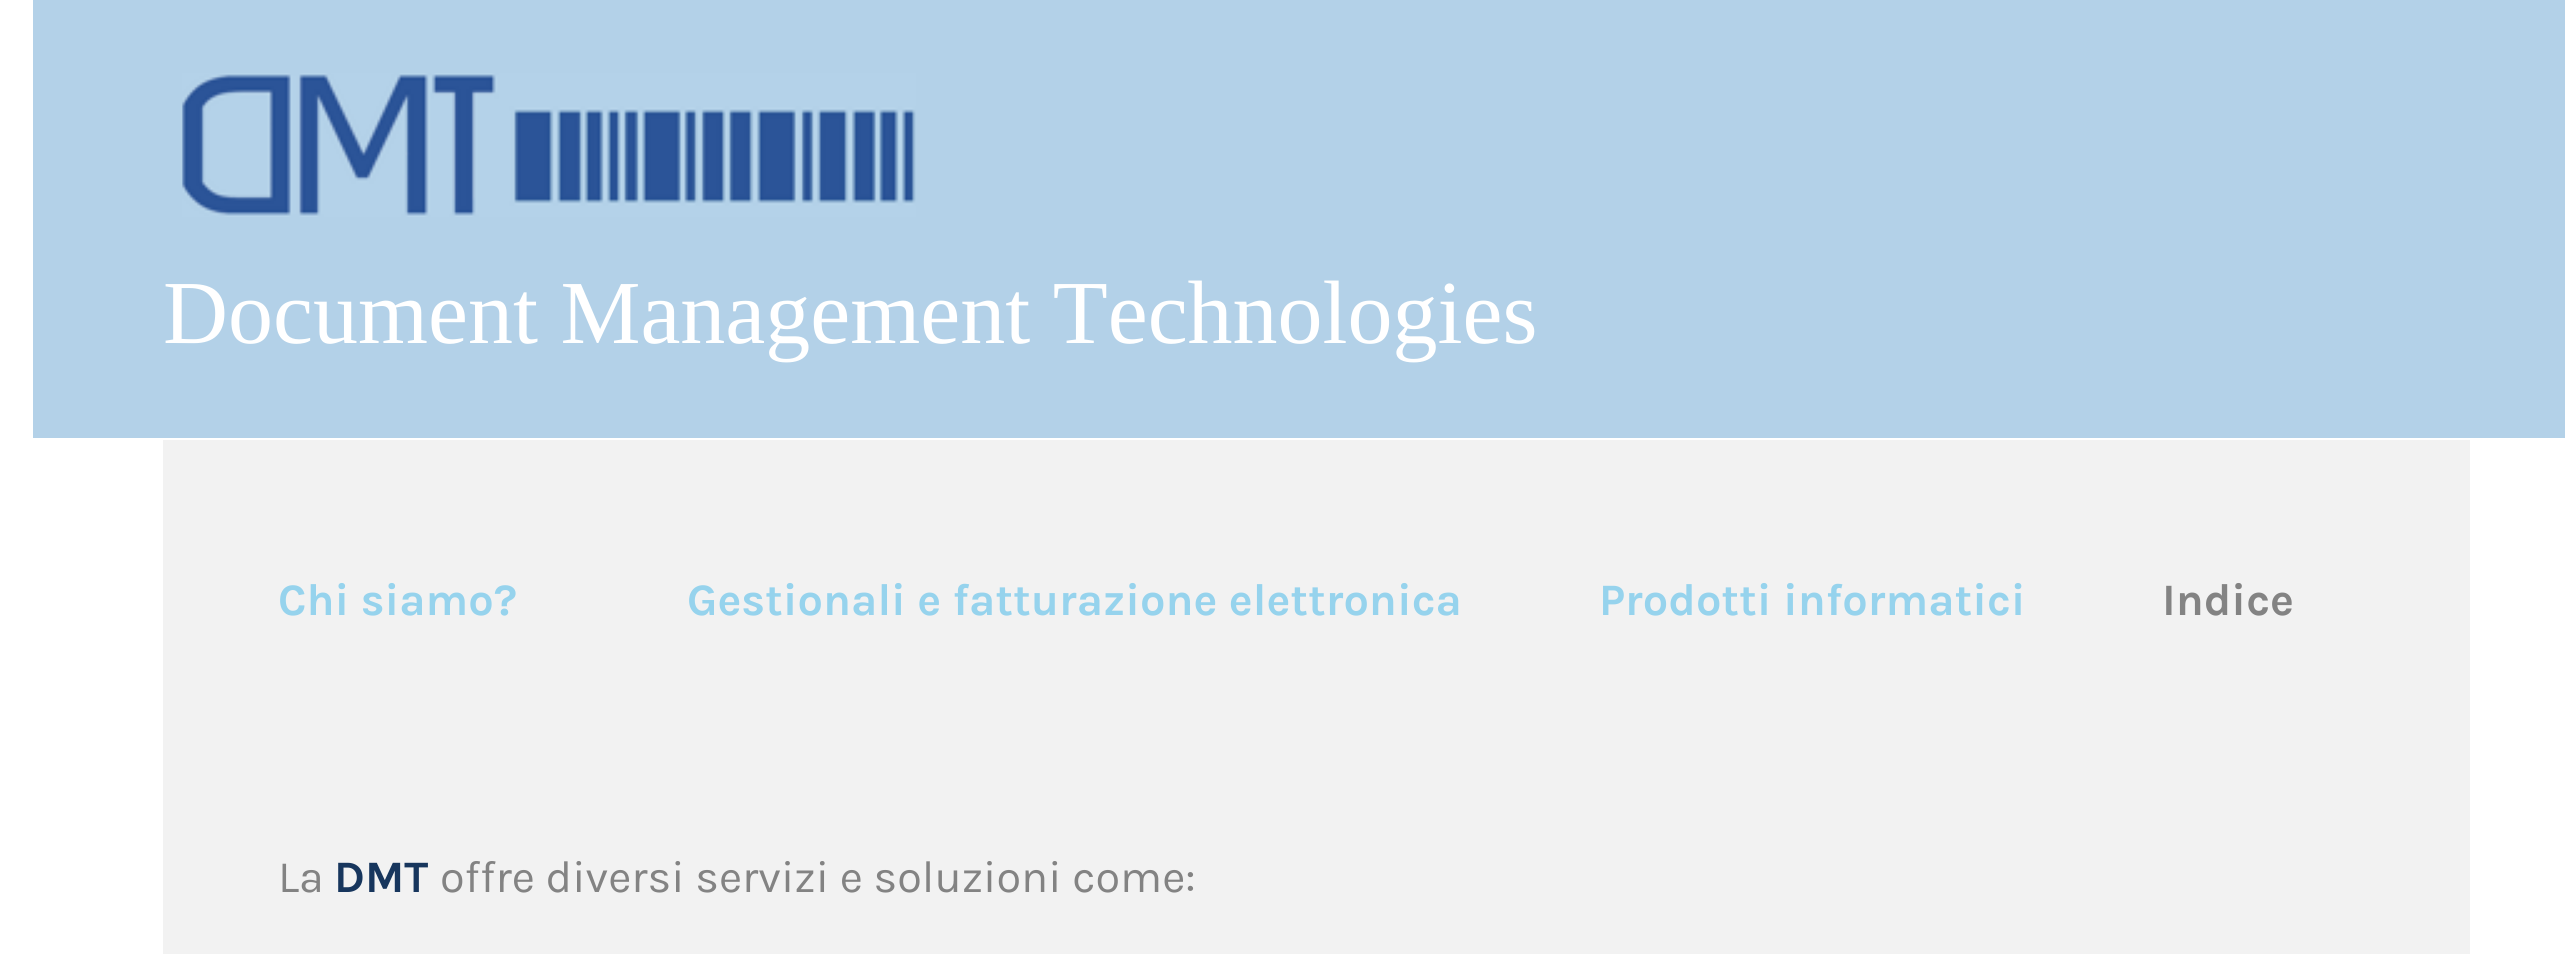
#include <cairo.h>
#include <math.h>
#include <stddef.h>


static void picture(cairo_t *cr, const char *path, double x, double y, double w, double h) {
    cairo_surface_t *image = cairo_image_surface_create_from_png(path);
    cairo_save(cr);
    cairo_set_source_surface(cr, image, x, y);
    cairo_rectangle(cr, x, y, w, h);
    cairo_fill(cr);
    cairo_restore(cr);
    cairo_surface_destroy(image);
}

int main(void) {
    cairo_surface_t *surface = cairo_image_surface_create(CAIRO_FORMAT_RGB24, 2565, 954);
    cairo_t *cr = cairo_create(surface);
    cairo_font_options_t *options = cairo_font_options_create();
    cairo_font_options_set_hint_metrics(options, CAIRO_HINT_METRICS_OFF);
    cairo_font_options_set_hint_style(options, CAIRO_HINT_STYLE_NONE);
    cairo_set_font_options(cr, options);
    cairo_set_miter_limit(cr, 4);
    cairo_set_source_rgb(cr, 1, 1, 1);
    cairo_paint(cr);
    cairo_set_source_rgb(cr, 0.702, 0.82, 0.91);
    cairo_rectangle(cr, 33, 0, 2532, 438);
    cairo_fill(cr);
    picture(cr, "img1.png", 182, 73, 734, 144);
    cairo_select_font_face(cr, "Liberation Serif", CAIRO_FONT_SLANT_NORMAL, CAIRO_FONT_WEIGHT_NORMAL);
    cairo_set_font_size(cr, 90);
    cairo_set_source_rgb(cr, 1, 1, 1);
    cairo_move_to(cr, 163, 343);
    cairo_show_text(cr, "Document Management Technologies");
    cairo_set_source_rgb(cr, 0.949, 0.949, 0.949);
    cairo_rectangle(cr, 163, 440, 2307, 514);
    cairo_fill(cr);
    cairo_select_font_face(cr, "Karla", CAIRO_FONT_SLANT_NORMAL, CAIRO_FONT_WEIGHT_BOLD);
    cairo_set_font_size(cr, 45);
    cairo_set_source_rgb(cr, 0.588, 0.827, 0.929);
    cairo_move_to(cr, 278, 615);
    cairo_show_text(cr, "Chi siamo?");
    cairo_move_to(cr, 687, 615);
    cairo_show_text(cr, "Gestionali e fatturazione elettronica");
    cairo_move_to(cr, 1599, 615);
    cairo_show_text(cr, "Prodotti informatici");
    cairo_set_source_rgb(cr, 0.514, 0.514, 0.514);
    cairo_move_to(cr, 2162, 615);
    cairo_show_text(cr, "Indice");
    cairo_select_font_face(cr, "Karla", CAIRO_FONT_SLANT_NORMAL, CAIRO_FONT_WEIGHT_NORMAL);
    cairo_move_to(cr, 278, 892);
    cairo_show_text(cr, "La");
    cairo_select_font_face(cr, "Karla", CAIRO_FONT_SLANT_NORMAL, CAIRO_FONT_WEIGHT_BOLD);
    cairo_set_source_rgb(cr, 0.09, 0.212, 0.365);
    cairo_move_to(cr, 334, 892);
    cairo_show_text(cr, "DMT");
    cairo_select_font_face(cr, "Karla", CAIRO_FONT_SLANT_NORMAL, CAIRO_FONT_WEIGHT_NORMAL);
    cairo_set_source_rgb(cr, 0.514, 0.514, 0.514);
    cairo_move_to(cr, 440, 892);
    cairo_show_text(cr, "offre diversi servizi e soluzioni come:");
    cairo_surface_write_to_png(surface, "page.png");
    cairo_font_options_destroy(options);
    cairo_destroy(cr);
    cairo_surface_destroy(surface);
    return 0;
}
